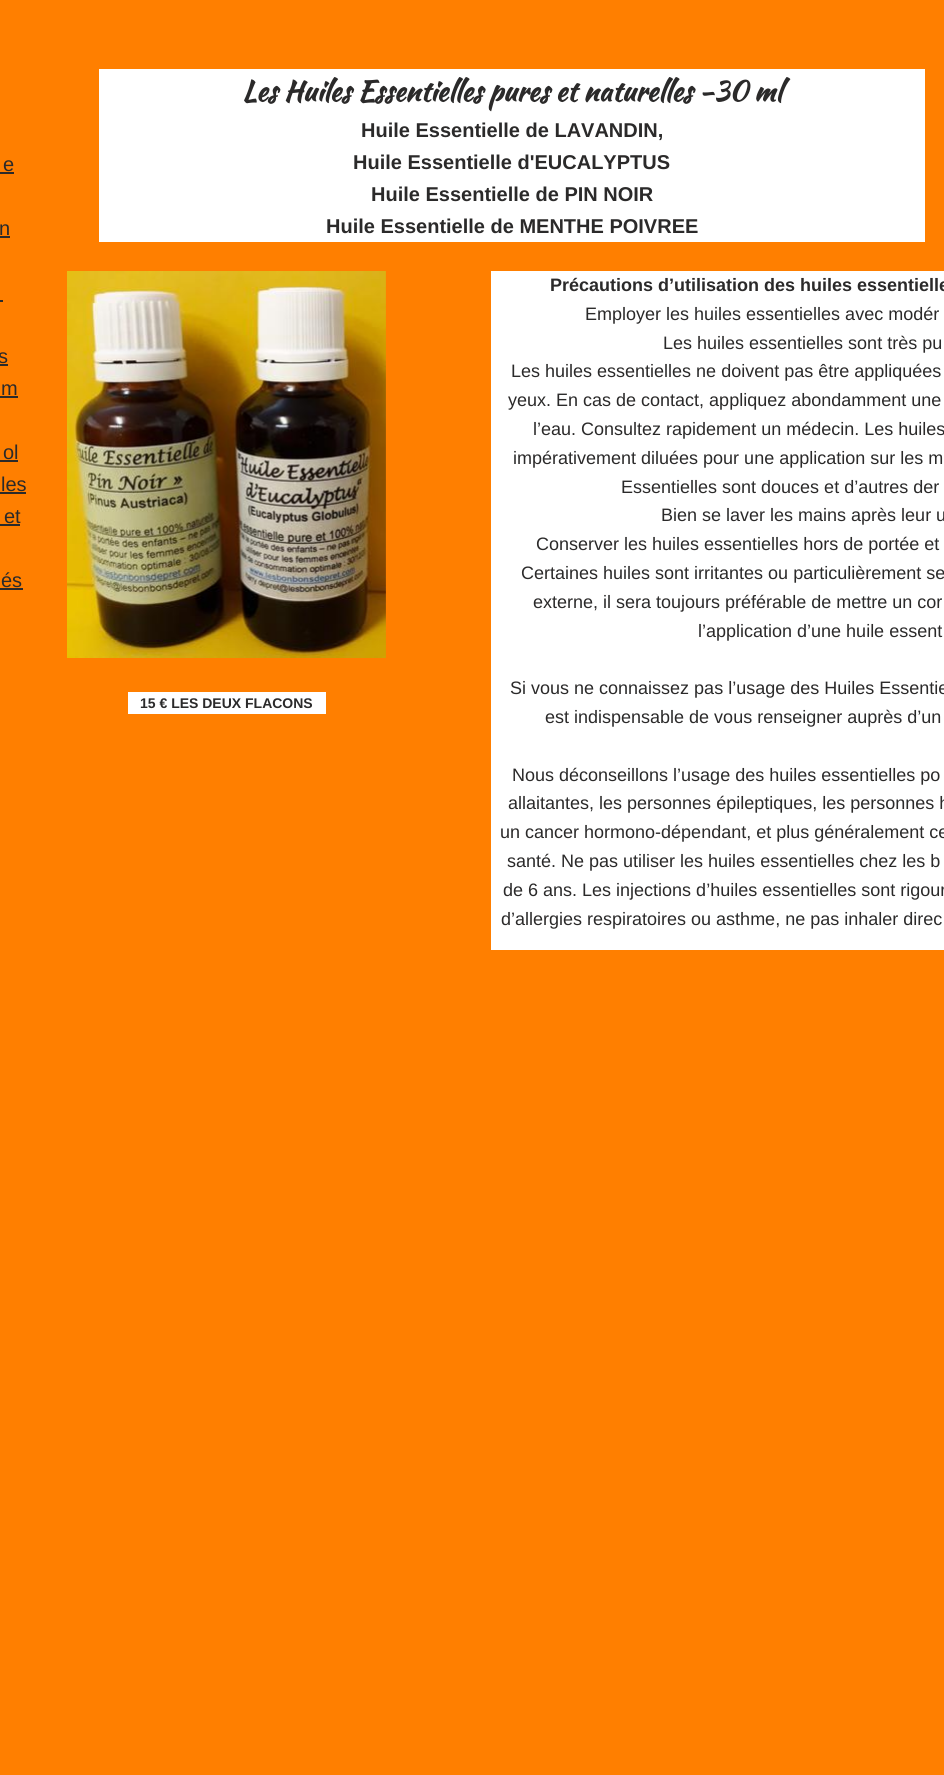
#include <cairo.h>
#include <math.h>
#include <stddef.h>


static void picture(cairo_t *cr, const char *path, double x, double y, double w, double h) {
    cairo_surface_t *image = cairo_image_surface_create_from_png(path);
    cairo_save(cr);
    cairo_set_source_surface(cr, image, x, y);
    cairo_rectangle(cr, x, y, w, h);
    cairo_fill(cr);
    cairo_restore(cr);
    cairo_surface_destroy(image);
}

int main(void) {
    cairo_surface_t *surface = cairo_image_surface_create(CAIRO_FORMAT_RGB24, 944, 1775);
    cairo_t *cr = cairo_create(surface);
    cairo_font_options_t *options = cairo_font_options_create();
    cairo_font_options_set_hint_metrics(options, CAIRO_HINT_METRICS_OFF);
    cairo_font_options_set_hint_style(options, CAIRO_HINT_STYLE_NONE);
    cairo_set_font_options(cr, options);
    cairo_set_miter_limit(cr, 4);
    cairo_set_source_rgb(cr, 1, 0.498, 0);
    cairo_paint(cr);
    cairo_select_font_face(cr, "Liberation Sans", CAIRO_FONT_SLANT_NORMAL, CAIRO_FONT_WEIGHT_NORMAL);
    cairo_set_font_size(cr, 20);
    cairo_set_source_rgb(cr, 0.169, 0.165, 0.165);
    cairo_move_to(cr, 3, 171);
    cairo_show_text(cr, "e");
    cairo_rectangle(cr, 0, 172, 14, 2);
    cairo_fill(cr);
    cairo_move_to(cr, -1, 235);
    cairo_show_text(cr, "n");
    cairo_rectangle(cr, 0, 236, 10, 2);
    cairo_fill(cr);
    cairo_rectangle(cr, 0, 300, 3, 2);
    cairo_fill(cr);
    cairo_move_to(cr, -2, 363);
    cairo_show_text(cr, "s");
    cairo_rectangle(cr, 0, 364, 8, 2);
    cairo_fill(cr);
    cairo_move_to(cr, 1, 395);
    cairo_show_text(cr, "m");
    cairo_rectangle(cr, 0, 396, 18, 2);
    cairo_fill(cr);
    cairo_move_to(cr, 3, 459);
    cairo_show_text(cr, "ol");
    cairo_rectangle(cr, 0, 460, 18, 2);
    cairo_fill(cr);
    cairo_move_to(cr, 1, 491);
    cairo_show_text(cr, "les");
    cairo_rectangle(cr, 0, 492, 26, 2);
    cairo_fill(cr);
    cairo_move_to(cr, 4, 523);
    cairo_show_text(cr, "et");
    cairo_rectangle(cr, 0, 524, 20, 2);
    cairo_fill(cr);
    cairo_move_to(cr, 1, 587);
    cairo_show_text(cr, "és");
    cairo_rectangle(cr, 0, 588, 23, 2);
    cairo_fill(cr);
    picture(cr, "img1.png", 67, 271, 319, 387);
    cairo_set_source_rgb(cr, 1, 1, 1);
    cairo_rectangle(cr, 99, 69, 826, 173);
    cairo_fill(cr);
    cairo_select_font_face(cr, "Kaushan Script", CAIRO_FONT_SLANT_NORMAL, CAIRO_FONT_WEIGHT_BOLD);
    cairo_set_font_size(cr, 28);
    cairo_set_source_rgb(cr, 0.169, 0.165, 0.165);
    cairo_move_to(cr, 242, 101);
    cairo_show_text(cr, "Les Huiles Essentielles pures et naturelles -30 ml");
    cairo_select_font_face(cr, "Liberation Sans", CAIRO_FONT_SLANT_NORMAL, CAIRO_FONT_WEIGHT_BOLD);
    cairo_set_font_size(cr, 20);
    cairo_move_to(cr, 361, 137);
    cairo_show_text(cr, "Huile Essentielle de LAVANDIN,");
    cairo_move_to(cr, 353, 169);
    cairo_show_text(cr, "Huile Essentielle d'EUCALYPTUS");
    cairo_move_to(cr, 371, 201);
    cairo_show_text(cr, "Huile Essentielle de PIN NOIR");
    cairo_move_to(cr, 326, 233);
    cairo_show_text(cr, "Huile Essentielle de MENTHE POIVREE");
    cairo_set_source_rgb(cr, 1, 1, 1);
    cairo_rectangle(cr, 128, 692, 198, 22);
    cairo_fill(cr);
    cairo_set_font_size(cr, 14);
    cairo_set_source_rgb(cr, 0.169, 0.165, 0.165);
    cairo_move_to(cr, 140, 708);
    cairo_show_text(cr, "15 € LES DEUX FLACONS");
    cairo_set_source_rgb(cr, 1, 1, 1);
    cairo_rectangle(cr, 491, 271, 453, 679);
    cairo_fill(cr);
    cairo_set_font_size(cr, 18);
    cairo_set_source_rgb(cr, 0.169, 0.165, 0.165);
    cairo_move_to(cr, 550, 291);
    cairo_show_text(cr, "Précautions d’utilisation des huiles essentielle");
    cairo_select_font_face(cr, "Liberation Sans", CAIRO_FONT_SLANT_NORMAL, CAIRO_FONT_WEIGHT_NORMAL);
    cairo_move_to(cr, 585, 320);
    cairo_show_text(cr, "Employer les huiles essentielles avec modér");
    cairo_move_to(cr, 663, 349);
    cairo_show_text(cr, "Les huiles essentielles sont très pu");
    cairo_move_to(cr, 511, 377);
    cairo_show_text(cr, "Les huiles essentielles ne doivent pas être appliquées");
    cairo_move_to(cr, 508, 406);
    cairo_show_text(cr, "yeux. En cas de contact, appliquez abondamment une");
    cairo_move_to(cr, 533, 435);
    cairo_show_text(cr, "l’eau. Consultez rapidement un médecin. Les huiles");
    cairo_move_to(cr, 513, 464);
    cairo_show_text(cr, "impérativement diluées pour une application sur les m");
    cairo_move_to(cr, 621, 493);
    cairo_show_text(cr, "Essentielles sont douces et d’autres der");
    cairo_move_to(cr, 661, 521);
    cairo_show_text(cr, "Bien se laver les mains après leur u");
    cairo_move_to(cr, 536, 550);
    cairo_show_text(cr, "Conserver les huiles essentielles hors de portée et");
    cairo_move_to(cr, 521, 579);
    cairo_show_text(cr, "Certaines huiles sont irritantes ou particulièrement se");
    cairo_move_to(cr, 533, 608);
    cairo_show_text(cr, "externe, il sera toujours préférable de mettre un cor");
    cairo_move_to(cr, 698, 637);
    cairo_show_text(cr, "l’application d’une huile essent");
    cairo_move_to(cr, 510, 694);
    cairo_show_text(cr, "Si vous ne connaissez pas l’usage des Huiles Essentie");
    cairo_move_to(cr, 545, 723);
    cairo_show_text(cr, "est indispensable de vous renseigner auprès d’un");
    cairo_move_to(cr, 512, 781);
    cairo_show_text(cr, "Nous déconseillons l’usage des huiles essentielles po");
    cairo_move_to(cr, 508, 809);
    cairo_show_text(cr, "allaitantes, les personnes épileptiques, les personnes h");
    cairo_move_to(cr, 500, 838);
    cairo_show_text(cr, "un cancer hormono-dépendant, et plus généralement ce");
    cairo_move_to(cr, 507, 867);
    cairo_show_text(cr, "santé. Ne pas utiliser les huiles essentielles chez les b");
    cairo_move_to(cr, 503, 896);
    cairo_show_text(cr, "de 6 ans. Les injections d’huiles essentielles sont rigour");
    cairo_move_to(cr, 501, 925);
    cairo_show_text(cr, "d’allergies respiratoires ou asthme, ne pas inhaler direc");
    cairo_surface_write_to_png(surface, "page.png");
    cairo_font_options_destroy(options);
    cairo_destroy(cr);
    cairo_surface_destroy(surface);
    return 0;
}
